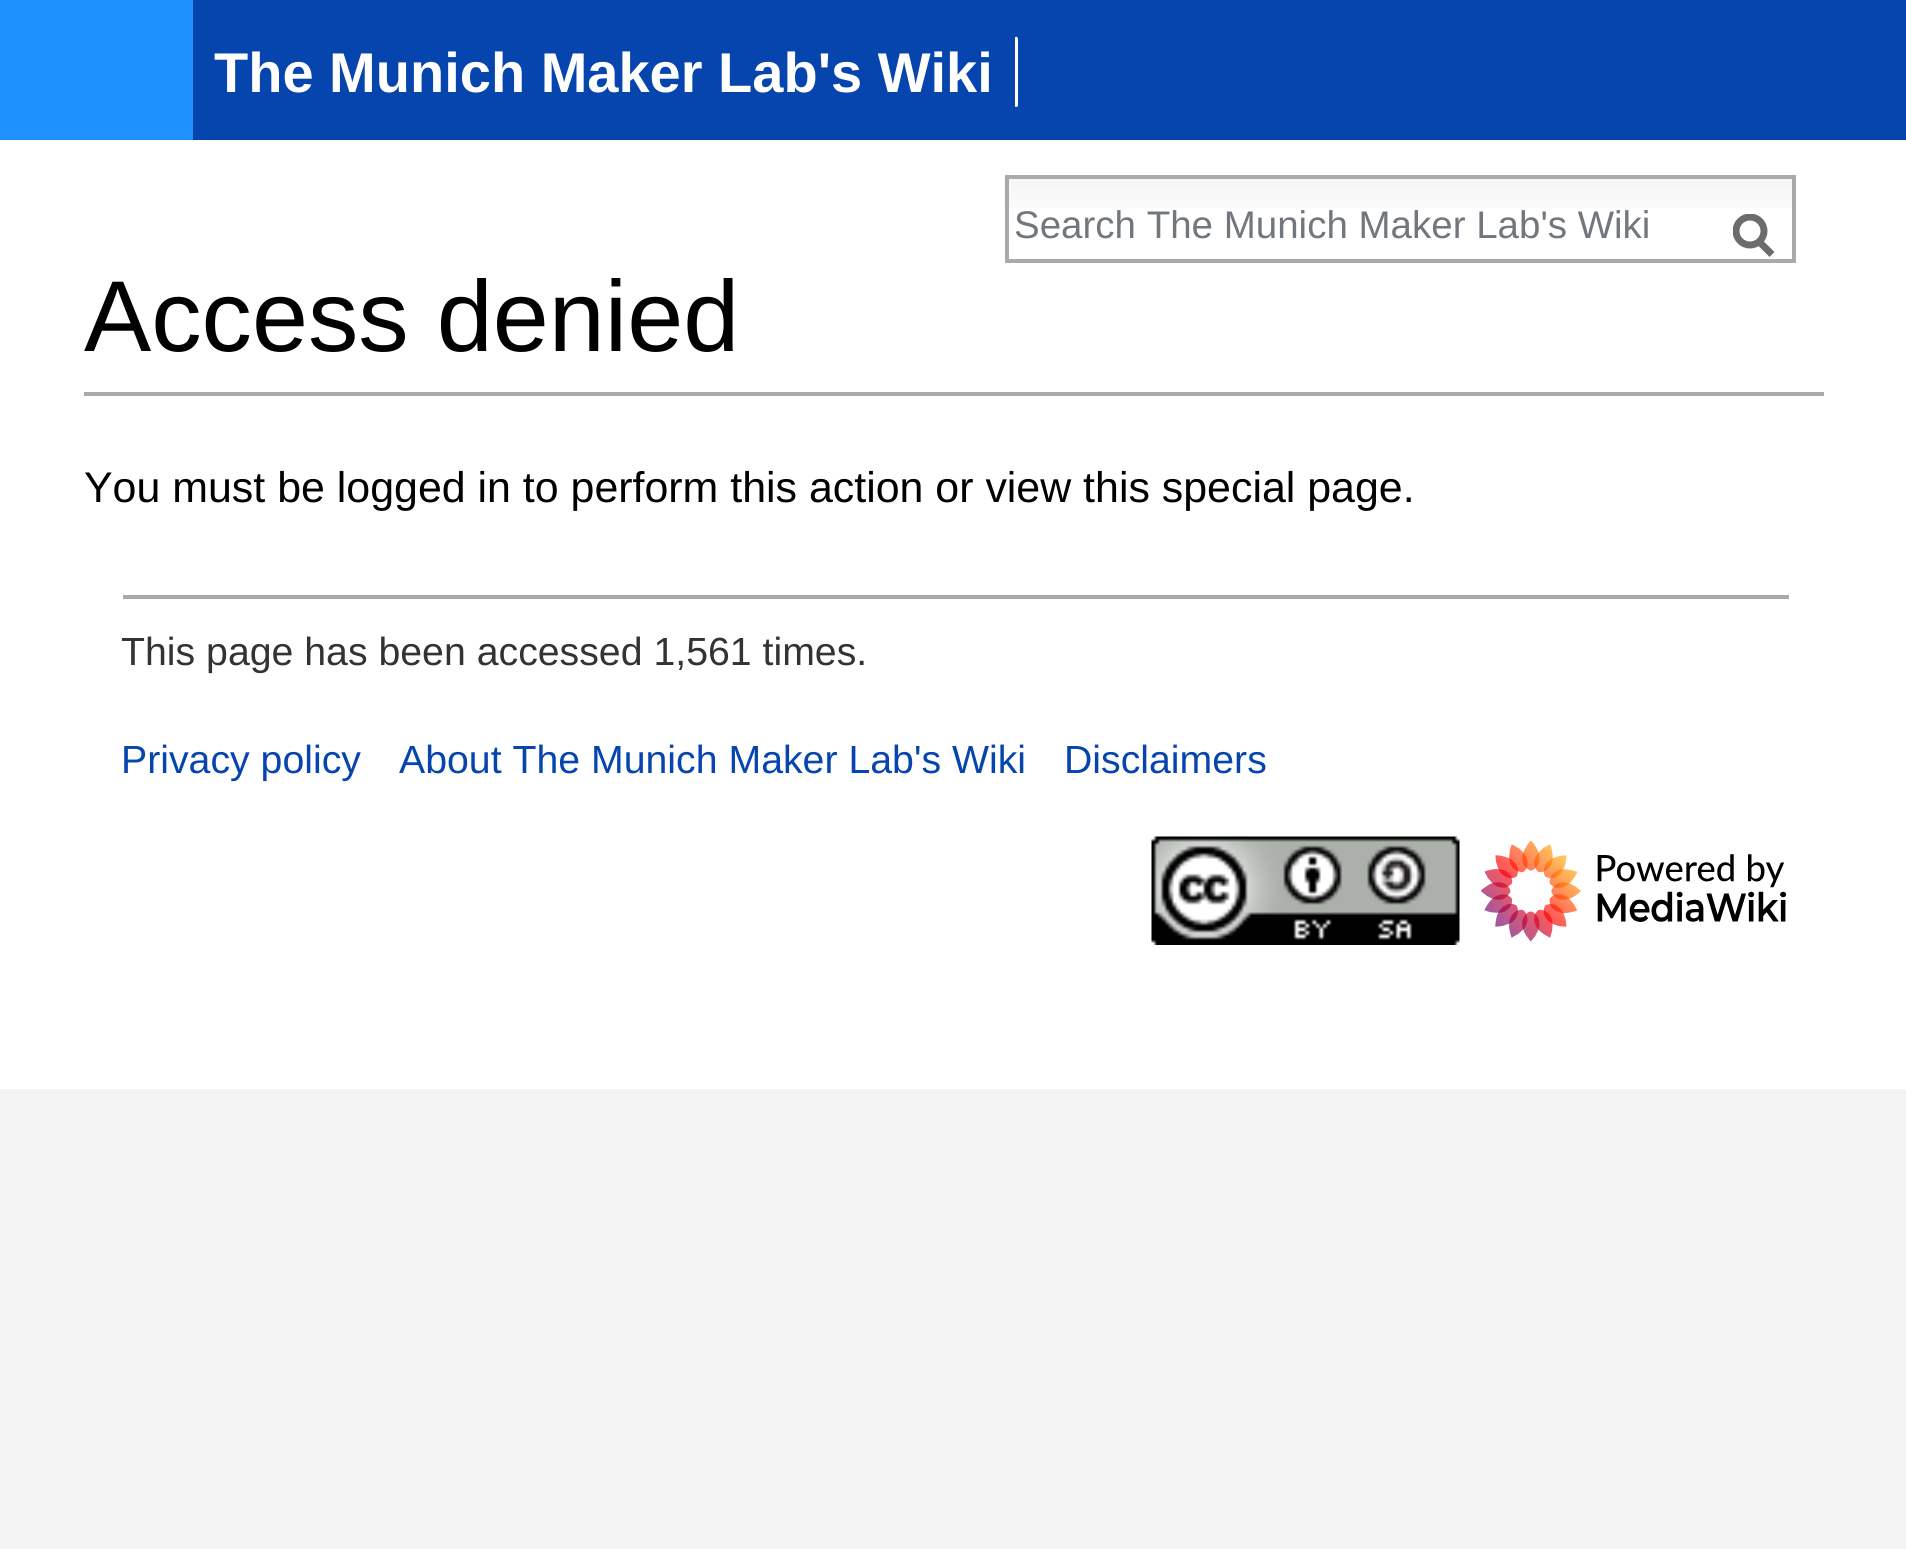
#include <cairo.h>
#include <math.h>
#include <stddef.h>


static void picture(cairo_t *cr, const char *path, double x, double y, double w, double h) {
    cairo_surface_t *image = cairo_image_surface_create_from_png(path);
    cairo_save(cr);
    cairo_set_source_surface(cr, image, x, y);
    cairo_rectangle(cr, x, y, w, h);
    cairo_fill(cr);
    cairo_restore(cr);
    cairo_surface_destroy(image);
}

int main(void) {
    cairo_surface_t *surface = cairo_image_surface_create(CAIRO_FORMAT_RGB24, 1906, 1549);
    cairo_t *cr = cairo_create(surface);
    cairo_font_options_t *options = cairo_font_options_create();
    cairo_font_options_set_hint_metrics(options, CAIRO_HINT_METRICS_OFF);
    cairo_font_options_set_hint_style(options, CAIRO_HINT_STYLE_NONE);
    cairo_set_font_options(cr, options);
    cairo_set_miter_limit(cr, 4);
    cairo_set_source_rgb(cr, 0.953, 0.953, 0.953);
    cairo_paint(cr);
    cairo_set_source_rgb(cr, 0.024, 0.271, 0.678);
    cairo_rectangle(cr, 193, 0, 1713, 140);
    cairo_fill(cr);
    cairo_set_source_rgb(cr, 0.118, 0.565, 1);
    cairo_rectangle(cr, 0, 0, 193, 140);
    cairo_fill(cr);
    cairo_select_font_face(cr, "Liberation Sans", CAIRO_FONT_SLANT_NORMAL, CAIRO_FONT_WEIGHT_BOLD);
    cairo_set_font_size(cr, 56);
    cairo_set_source_rgb(cr, 1, 1, 1);
    cairo_move_to(cr, 214, 92);
    cairo_show_text(cr, "The Munich Maker Lab's Wiki");
    cairo_save(cr);
    cairo_rectangle(cr, 1015, 0, 4, 123);
    cairo_clip(cr);
    cairo_set_source_rgb(cr, 0.996, 0.996, 0.996);
    cairo_new_path(cr);
    cairo_move_to(cr, 1015, 72);
    cairo_line_to(cr, 1014, 38);
    cairo_curve_to(cr, 1015, 37, 1018, 35, 1018, 40);
    cairo_line_to(cr, 1018, 106);
    cairo_curve_to(cr, 1018, 106, 1017, 107, 1016, 107);
    cairo_curve_to(cr, 1015, 107, 1015, 106, 1014, 106);
    cairo_line_to(cr, 1015, 102);
    cairo_close_path(cr);
    cairo_fill(cr);
    cairo_restore(cr);
    cairo_rectangle(cr, 0, 140, 1906, 949);
    cairo_fill(cr);
    picture(cr, "img1.png", 1004, 178, 788, 30);
    cairo_rectangle(cr, 1007, 177, 787, 84);
    cairo_set_source_rgb(cr, 0.667, 0.667, 0.667);
    cairo_set_line_width(cr, 4);
    cairo_stroke(cr);
    cairo_select_font_face(cr, "Liberation Sans", CAIRO_FONT_SLANT_NORMAL, CAIRO_FONT_WEIGHT_NORMAL);
    cairo_set_font_size(cr, 38.5);
    cairo_set_source_rgb(cr, 0.447, 0.467, 0.49);
    cairo_move_to(cr, 1014, 238);
    cairo_show_text(cr, "Search The Munich Maker Lab's Wiki");
    cairo_new_path(cr);
    cairo_move_to(cr, 1772, 254.5);
    cairo_line_to(cr, 1758, 240.5);
    cairo_set_source_rgb(cr, 0.424, 0.424, 0.424);
    cairo_set_line_width(cr, 7);
    cairo_stroke(cr);
    cairo_save(cr);
    cairo_rectangle(cr, 1733, 214, 42, 45);
    cairo_clip(cr);
    cairo_arc(cr, 1750, 231, 14, 0, 2 * M_PI);
    cairo_stroke(cr);
    cairo_restore(cr);
    cairo_set_source_rgb(cr, 0.667, 0.667, 0.667);
    cairo_rectangle(cr, 84, 392, 1740, 4);
    cairo_fill(cr);
    cairo_set_font_size(cr, 100.75);
    cairo_set_source_rgb(cr, 0, 0, 0);
    cairo_move_to(cr, 84, 351);
    cairo_show_text(cr, "Access denied");
    cairo_set_font_size(cr, 42.9);
    cairo_move_to(cr, 84, 502);
    cairo_show_text(cr, "You must be logged in to perform this action or view this special page.");
    cairo_set_source_rgb(cr, 0.667, 0.667, 0.667);
    cairo_rectangle(cr, 123, 595, 1666, 4);
    cairo_fill(cr);
    cairo_set_font_size(cr, 39.25);
    cairo_set_source_rgb(cr, 0.2, 0.2, 0.2);
    cairo_move_to(cr, 121, 665);
    cairo_show_text(cr, "This page has been accessed 1,561 times.");
    cairo_set_source_rgb(cr, 0.024, 0.271, 0.678);
    cairo_move_to(cr, 121, 773);
    cairo_show_text(cr, "Privacy policy");
    cairo_move_to(cr, 399, 773);
    cairo_show_text(cr, "About The Munich Maker Lab's Wiki");
    cairo_move_to(cr, 1064, 773);
    cairo_show_text(cr, "Disclaimers");
    picture(cr, "img2.png", 1151, 836, 309, 109);
    picture(cr, "img3.png", 1481, 840, 305, 102);
    cairo_surface_write_to_png(surface, "page.png");
    cairo_font_options_destroy(options);
    cairo_destroy(cr);
    cairo_surface_destroy(surface);
    return 0;
}
